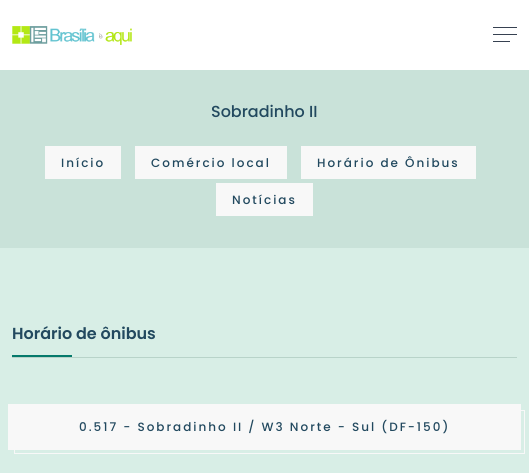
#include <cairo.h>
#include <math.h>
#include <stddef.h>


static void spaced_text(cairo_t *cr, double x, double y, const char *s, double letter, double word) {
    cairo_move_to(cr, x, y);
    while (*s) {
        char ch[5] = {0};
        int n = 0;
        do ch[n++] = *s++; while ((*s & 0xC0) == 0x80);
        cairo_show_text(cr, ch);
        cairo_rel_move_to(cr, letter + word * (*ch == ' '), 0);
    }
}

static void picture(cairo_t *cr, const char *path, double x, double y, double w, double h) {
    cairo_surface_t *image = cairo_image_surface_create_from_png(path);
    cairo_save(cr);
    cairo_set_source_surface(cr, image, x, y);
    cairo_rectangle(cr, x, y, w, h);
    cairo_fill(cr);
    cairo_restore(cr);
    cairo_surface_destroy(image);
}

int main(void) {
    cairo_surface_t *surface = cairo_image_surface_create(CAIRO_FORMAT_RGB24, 529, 473);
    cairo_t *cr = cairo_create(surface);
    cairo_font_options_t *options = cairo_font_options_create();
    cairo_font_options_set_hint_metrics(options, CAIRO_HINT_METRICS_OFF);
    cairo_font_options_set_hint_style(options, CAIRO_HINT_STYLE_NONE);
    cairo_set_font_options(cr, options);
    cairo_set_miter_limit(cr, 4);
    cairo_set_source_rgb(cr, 0.847, 0.933, 0.902);
    cairo_paint(cr);
    cairo_set_source_rgb(cr, 1, 1, 1);
    cairo_rectangle(cr, 0, 0, 529, 70);
    cairo_fill(cr);
    picture(cr, "img1.png", 12, 26, 120, 19);
    cairo_set_source_rgb(cr, 0.216, 0.255, 0.318);
    cairo_rectangle(cr, 493, 27, 24, 1);
    cairo_fill(cr);
    cairo_rectangle(cr, 493, 34, 24, 1);
    cairo_fill(cr);
    cairo_rectangle(cr, 493, 41, 17, 1);
    cairo_fill(cr);
    cairo_set_source_rgb(cr, 0.788, 0.886, 0.851);
    cairo_rectangle(cr, 0, 70, 529, 178);
    cairo_fill(cr);
    cairo_select_font_face(cr, "Poppins Medium", CAIRO_FONT_SLANT_NORMAL, CAIRO_FONT_WEIGHT_NORMAL);
    cairo_set_font_size(cr, 16);
    cairo_set_source_rgb(cr, 0.133, 0.286, 0.373);
    cairo_move_to(cr, 211, 117);
    cairo_show_text(cr, "Sobradinho II");
    cairo_set_source_rgb(cr, 0.969, 0.969, 0.969);
    cairo_rectangle(cr, 45, 146, 76, 33);
    cairo_fill(cr);
    cairo_set_font_size(cr, 12);
    cairo_set_source_rgb(cr, 0.133, 0.286, 0.373);
    spaced_text(cr, 61, 167, "Início", 2, 0);
    cairo_set_source_rgb(cr, 0.969, 0.969, 0.969);
    cairo_rectangle(cr, 135, 146, 152, 33);
    cairo_fill(cr);
    cairo_set_source_rgb(cr, 0.133, 0.286, 0.373);
    spaced_text(cr, 151, 167, "Comércio local", 2, 0);
    cairo_set_source_rgb(cr, 0.969, 0.969, 0.969);
    cairo_rectangle(cr, 301, 146, 175, 33);
    cairo_fill(cr);
    cairo_set_source_rgb(cr, 0.133, 0.286, 0.373);
    spaced_text(cr, 317, 167, "Horário de Ônibus", 2, 0);
    cairo_set_source_rgb(cr, 0.969, 0.969, 0.969);
    cairo_rectangle(cr, 216, 183, 97, 33);
    cairo_fill(cr);
    cairo_set_source_rgb(cr, 0.133, 0.286, 0.373);
    spaced_text(cr, 232, 204, "Notícias", 2, 0);
    cairo_select_font_face(cr, "Poppins SemiBold", CAIRO_FONT_SLANT_NORMAL, CAIRO_FONT_WEIGHT_NORMAL);
    cairo_set_font_size(cr, 16);
    cairo_move_to(cr, 12, 339);
    cairo_show_text(cr, "Horário de ônibus");
    cairo_set_source_rgb(cr, 0.02, 0.475, 0.42);
    cairo_rectangle(cr, 12, 355, 60, 2);
    cairo_fill(cr);
    cairo_set_source_rgb(cr, 0.722, 0.827, 0.788);
    cairo_rectangle(cr, 12, 357, 505, 1);
    cairo_fill(cr);
    cairo_rectangle(cr, 14.5, 410.5, 510, 43);
    cairo_set_source_rgb(cr, 0.969, 0.969, 0.969);
    cairo_set_line_width(cr, 1);
    cairo_stroke(cr);
    cairo_rectangle(cr, 8, 404, 513, 46);
    cairo_fill(cr);
    cairo_select_font_face(cr, "Poppins Medium", CAIRO_FONT_SLANT_NORMAL, CAIRO_FONT_WEIGHT_NORMAL);
    cairo_set_font_size(cr, 12);
    cairo_set_source_rgb(cr, 0.133, 0.286, 0.373);
    spaced_text(cr, 79, 431, "0.517 - Sobradinho II / W3 Norte - Sul (DF-150)", 2, 0);
    cairo_surface_write_to_png(surface, "page.png");
    cairo_font_options_destroy(options);
    cairo_destroy(cr);
    cairo_surface_destroy(surface);
    return 0;
}
